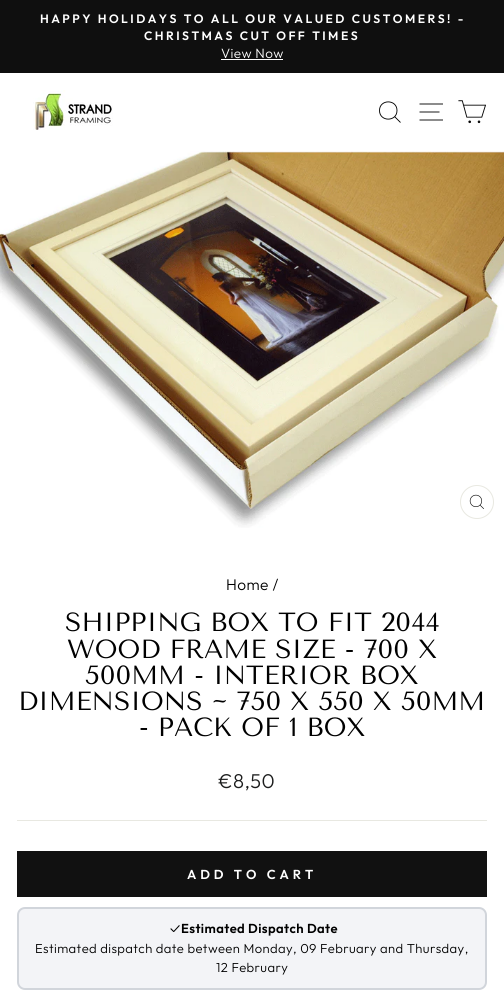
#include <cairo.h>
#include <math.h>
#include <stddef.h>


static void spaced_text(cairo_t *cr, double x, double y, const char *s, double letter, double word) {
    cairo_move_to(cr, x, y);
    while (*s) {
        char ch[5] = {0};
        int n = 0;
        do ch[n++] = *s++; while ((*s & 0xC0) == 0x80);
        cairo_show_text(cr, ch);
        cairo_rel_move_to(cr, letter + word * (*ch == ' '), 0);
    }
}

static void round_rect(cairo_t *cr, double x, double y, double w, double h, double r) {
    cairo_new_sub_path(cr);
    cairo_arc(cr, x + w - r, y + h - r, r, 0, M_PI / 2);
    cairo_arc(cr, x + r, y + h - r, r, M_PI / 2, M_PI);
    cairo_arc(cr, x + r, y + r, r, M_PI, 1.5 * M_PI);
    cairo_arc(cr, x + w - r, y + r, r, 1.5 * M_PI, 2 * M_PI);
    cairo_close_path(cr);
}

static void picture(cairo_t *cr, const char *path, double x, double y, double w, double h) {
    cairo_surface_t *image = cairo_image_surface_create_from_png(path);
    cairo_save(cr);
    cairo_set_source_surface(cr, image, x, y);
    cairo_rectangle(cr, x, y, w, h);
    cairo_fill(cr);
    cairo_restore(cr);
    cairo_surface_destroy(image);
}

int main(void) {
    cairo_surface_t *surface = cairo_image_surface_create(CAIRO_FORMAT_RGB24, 504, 992);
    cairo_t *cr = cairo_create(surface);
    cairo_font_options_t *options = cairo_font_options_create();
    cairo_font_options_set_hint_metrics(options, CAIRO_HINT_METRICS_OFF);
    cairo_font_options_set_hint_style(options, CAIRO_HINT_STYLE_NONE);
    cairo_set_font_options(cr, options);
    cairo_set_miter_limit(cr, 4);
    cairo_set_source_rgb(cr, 1, 1, 1);
    cairo_paint(cr);
    cairo_set_source_rgb(cr, 0.059, 0.059, 0.059);
    cairo_rectangle(cr, 0, 0, 504, 73);
    cairo_fill(cr);
    cairo_select_font_face(cr, "Outfit SemiBold", CAIRO_FONT_SLANT_NORMAL, CAIRO_FONT_WEIGHT_NORMAL);
    cairo_set_font_size(cr, 12.15);
    cairo_set_source_rgb(cr, 1, 1, 1);
    spaced_text(cr, 40, 23, "HAPPY HOLIDAYS TO ALL OUR VALUED CUSTOMERS! -", 2.45, 0);
    spaced_text(cr, 144, 40, "CHRISTMAS CUT OFF TIMES", 2.45, 0);
    cairo_select_font_face(cr, "Outfit Light", CAIRO_FONT_SLANT_NORMAL, CAIRO_FONT_WEIGHT_NORMAL);
    cairo_set_font_size(cr, 13.5);
    spaced_text(cr, 221, 58, "View Now", 0.4, 0);
    cairo_rectangle(cr, 221, 59, 62, 1);
    cairo_fill(cr);
    picture(cr, "img1.png", 33, 90, 80, 40);
    cairo_new_path(cr);
    cairo_move_to(cr, 397, 110.5);
    cairo_curve_to(cr, 397, 122, 379.5, 122, 379.5, 110.5);
    cairo_curve_to(cr, 379.5, 99, 397, 99, 397, 110.5);
    cairo_close_path(cr);
    cairo_move_to(cr, 400.5, 122.5);
    cairo_line_to(cr, 394.5, 116.5);
    cairo_set_source_rgb(cr, 0, 0, 0);
    cairo_set_line_width(cr, 0.9);
    cairo_stroke(cr);
    cairo_new_path(cr);
    cairo_move_to(cr, 419.5, 104);
    cairo_line_to(cr, 443, 104);
    cairo_move_to(cr, 419.5, 112);
    cairo_line_to(cr, 439.5, 112);
    cairo_move_to(cr, 419.5, 120);
    cairo_line_to(cr, 443, 120);
    cairo_stroke(cr);
    picture(cr, "img2.png", 458, 100, 28, 24);
    picture(cr, "img3.png", 0, 151, 504, 377);
    cairo_arc(cr, 477, 502, 16.5, 0, 2 * M_PI);
    cairo_set_source_rgb(cr, 0.91, 0.91, 0.882);
    cairo_set_line_width(cr, 1);
    cairo_stroke(cr);
    picture(cr, "img4.png", 469, 494, 15, 15);
    cairo_set_font_size(cr, 15.5);
    cairo_set_source_rgb(cr, 0, 0, 0);
    spaced_text(cr, 226, 590, "Home /", 0.4, 0);
    cairo_select_font_face(cr, "Tenor Sans", CAIRO_FONT_SLANT_NORMAL, CAIRO_FONT_WEIGHT_NORMAL);
    cairo_set_font_size(cr, 26.25);
    cairo_move_to(cr, 65, 631);
    cairo_show_text(cr, "SHIPPING BOX TO FIT 2044");
    cairo_move_to(cr, 67, 658);
    cairo_show_text(cr, "WOOD FRAME SIZE - 700 X");
    cairo_move_to(cr, 85, 684);
    cairo_show_text(cr, "500MM - INTERIOR BOX");
    cairo_move_to(cr, 18, 710);
    cairo_show_text(cr, "DIMENSIONS ~ 750 X 550 X 50MM");
    cairo_move_to(cr, 139, 736);
    cairo_show_text(cr, "- PACK OF 1 BOX");
    cairo_select_font_face(cr, "Outfit Light", CAIRO_FONT_SLANT_NORMAL, CAIRO_FONT_WEIGHT_NORMAL);
    cairo_set_font_size(cr, 20);
    cairo_set_source_rgb(cr, 0.11, 0.114, 0.114);
    spaced_text(cr, 218, 788, "€8,50", 0.4, 0);
    cairo_set_source_rgb(cr, 0.91, 0.91, 0.882);
    cairo_rectangle(cr, 17, 820, 470, 1);
    cairo_fill(cr);
    cairo_set_source_rgb(cr, 0.067, 0.067, 0.067);
    cairo_rectangle(cr, 17, 851, 470, 46);
    cairo_fill(cr);
    cairo_select_font_face(cr, "Outfit SemiBold", CAIRO_FONT_SLANT_NORMAL, CAIRO_FONT_WEIGHT_NORMAL);
    cairo_set_font_size(cr, 13);
    cairo_set_source_rgb(cr, 1, 1, 1);
    spaced_text(cr, 187, 879, "ADD TO CART", 3.9, 0);
    cairo_set_source_rgb(cr, 0.953, 0.957, 0.965);
    round_rect(cr, 18, 908, 468, 81, 7);
    cairo_fill_preserve(cr);
    cairo_set_source_rgb(cr, 0.82, 0.835, 0.859);
    cairo_set_line_width(cr, 2);
    cairo_stroke(cr);
    cairo_select_font_face(cr, "Outfit", CAIRO_FONT_SLANT_NORMAL, CAIRO_FONT_WEIGHT_NORMAL);
    cairo_set_source_rgb(cr, 0, 0, 0);
    spaced_text(cr, 170, 933, "✓", 0.4, 0);
    cairo_select_font_face(cr, "Outfit SemiBold", CAIRO_FONT_SLANT_NORMAL, CAIRO_FONT_WEIGHT_NORMAL);
    spaced_text(cr, 181, 933, "Estimated Dispatch Date", 0.4, 0);
    cairo_select_font_face(cr, "Outfit Light", CAIRO_FONT_SLANT_NORMAL, CAIRO_FONT_WEIGHT_NORMAL);
    spaced_text(cr, 35, 953, "Estimated dispatch date between Monday, 09 February and Thursday,", 0.4, 0);
    spaced_text(cr, 216, 972, "12 February", 0.4, 0);
    cairo_surface_write_to_png(surface, "page.png");
    cairo_font_options_destroy(options);
    cairo_destroy(cr);
    cairo_surface_destroy(surface);
    return 0;
}
